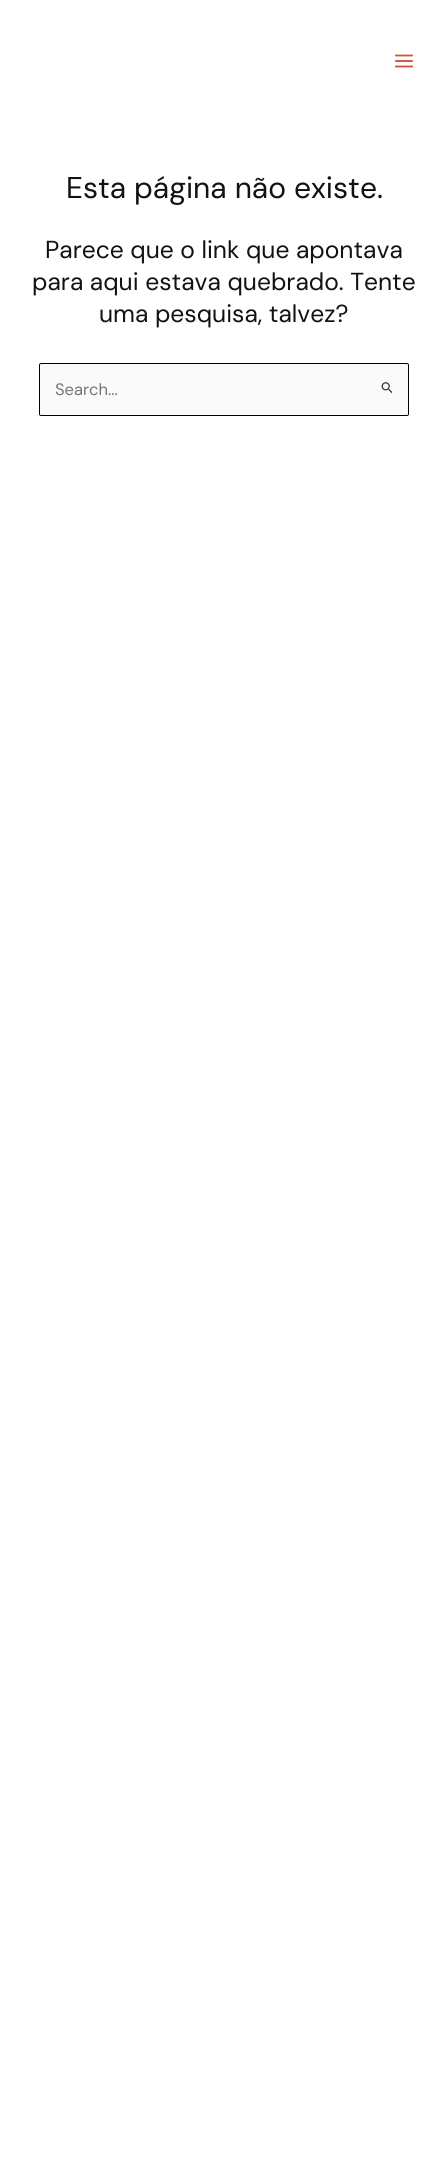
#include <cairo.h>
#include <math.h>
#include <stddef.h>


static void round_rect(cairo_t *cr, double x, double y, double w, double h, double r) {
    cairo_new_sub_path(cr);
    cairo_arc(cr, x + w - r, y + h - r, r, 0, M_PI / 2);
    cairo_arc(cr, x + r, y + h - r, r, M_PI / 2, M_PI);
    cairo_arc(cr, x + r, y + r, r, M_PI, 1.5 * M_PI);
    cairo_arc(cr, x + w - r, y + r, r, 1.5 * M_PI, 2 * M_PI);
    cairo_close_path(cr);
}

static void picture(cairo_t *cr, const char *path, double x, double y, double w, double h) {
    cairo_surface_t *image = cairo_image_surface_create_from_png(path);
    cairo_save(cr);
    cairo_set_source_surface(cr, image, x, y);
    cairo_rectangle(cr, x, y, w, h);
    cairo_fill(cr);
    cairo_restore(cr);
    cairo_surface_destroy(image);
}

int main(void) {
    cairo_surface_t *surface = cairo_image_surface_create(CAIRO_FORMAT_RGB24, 448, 2176);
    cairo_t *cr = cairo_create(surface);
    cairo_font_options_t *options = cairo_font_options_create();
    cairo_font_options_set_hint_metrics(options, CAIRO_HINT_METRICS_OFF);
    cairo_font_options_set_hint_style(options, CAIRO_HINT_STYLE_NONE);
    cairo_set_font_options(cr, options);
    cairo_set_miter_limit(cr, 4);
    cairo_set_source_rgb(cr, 1, 1, 1);
    cairo_paint(cr);
    picture(cr, "img1.png", 394, 54, 20, 14);
    cairo_select_font_face(cr, "DM Sans", CAIRO_FONT_SLANT_NORMAL, CAIRO_FONT_WEIGHT_NORMAL);
    cairo_set_font_size(cr, 30);
    cairo_set_source_rgb(cr, 0.063, 0.071, 0.094);
    cairo_move_to(cr, 66, 198);
    cairo_show_text(cr, "Esta página não existe.");
    cairo_set_font_size(cr, 24.6);
    cairo_move_to(cr, 45, 258);
    cairo_show_text(cr, "Parece que o link que apontava");
    cairo_move_to(cr, 32, 290);
    cairo_show_text(cr, "para aqui estava quebrado. Tente");
    cairo_move_to(cr, 99, 322);
    cairo_show_text(cr, "uma pesquisa, talvez?");
    cairo_set_source_rgb(cr, 0.98, 0.98, 0.98);
    round_rect(cr, 39.5, 363.5, 369, 52, 1.5);
    cairo_fill_preserve(cr);
    cairo_set_source_rgb(cr, 0, 0, 0);
    cairo_set_line_width(cr, 1);
    cairo_stroke(cr);
    cairo_set_font_size(cr, 16.5);
    cairo_set_source_rgb(cr, 0.459, 0.459, 0.459);
    cairo_move_to(cr, 55, 395);
    cairo_show_text(cr, "Search...");
    picture(cr, "img2.png", 381, 382, 11, 12);
    cairo_surface_write_to_png(surface, "page.png");
    cairo_font_options_destroy(options);
    cairo_destroy(cr);
    cairo_surface_destroy(surface);
    return 0;
}
